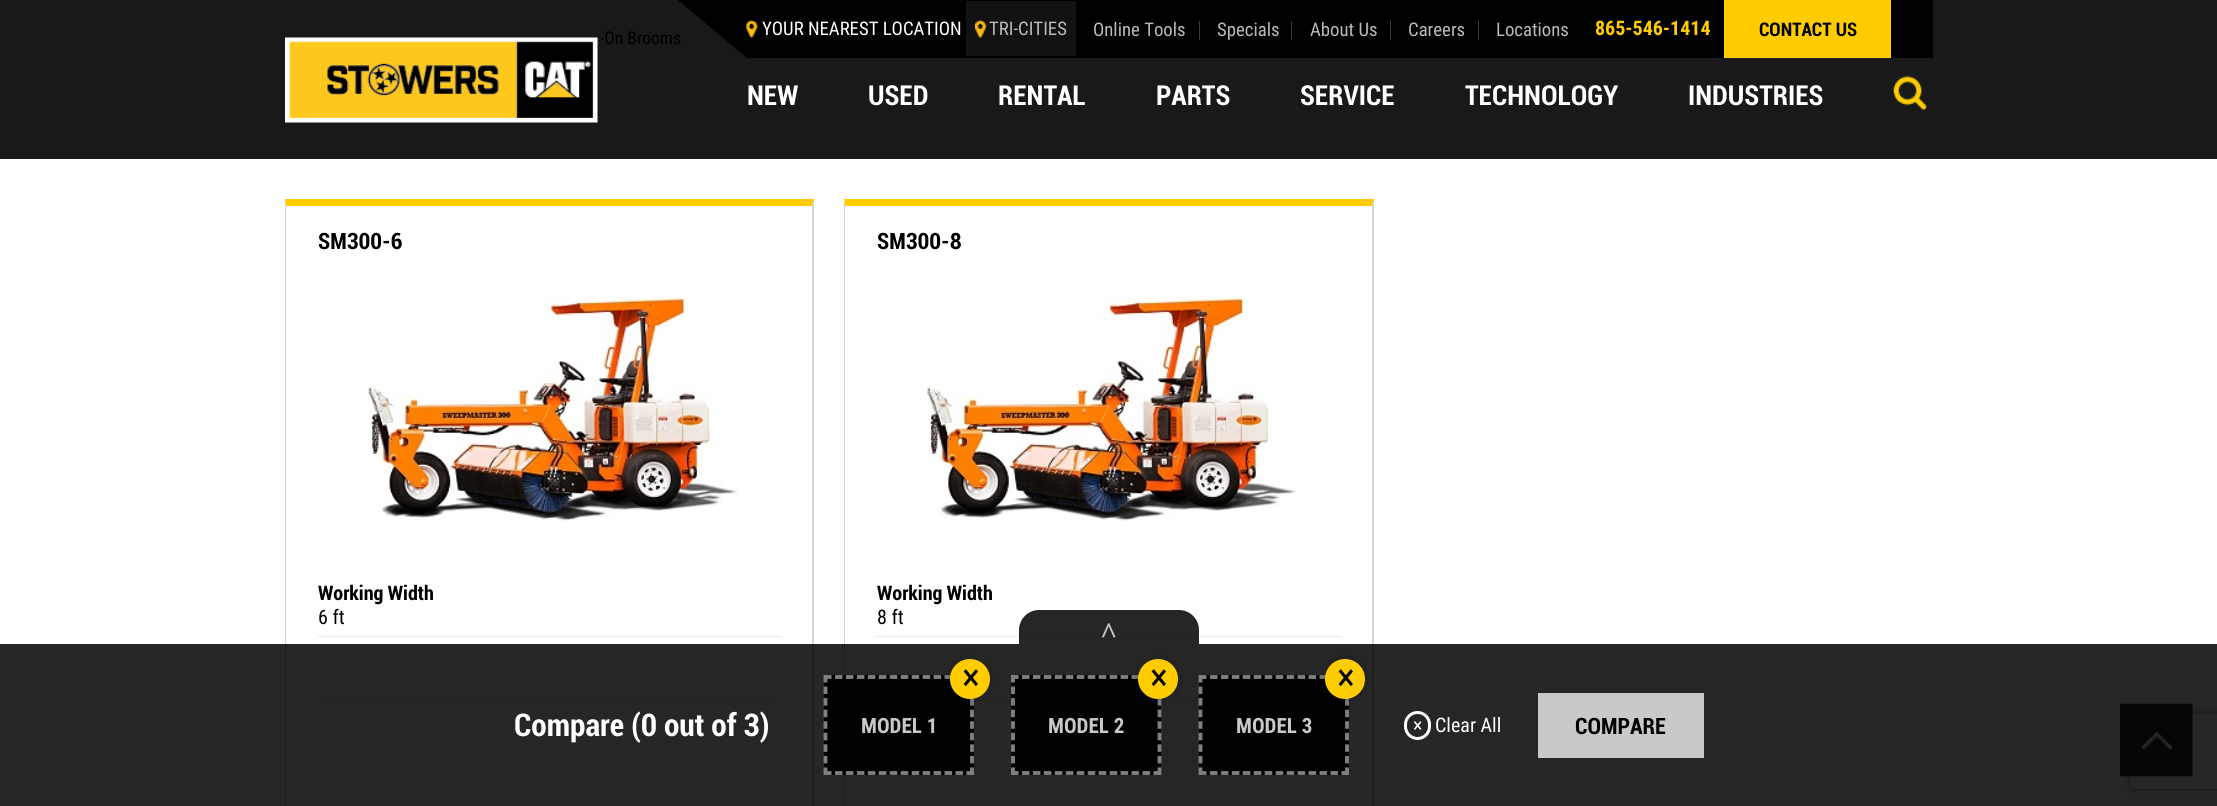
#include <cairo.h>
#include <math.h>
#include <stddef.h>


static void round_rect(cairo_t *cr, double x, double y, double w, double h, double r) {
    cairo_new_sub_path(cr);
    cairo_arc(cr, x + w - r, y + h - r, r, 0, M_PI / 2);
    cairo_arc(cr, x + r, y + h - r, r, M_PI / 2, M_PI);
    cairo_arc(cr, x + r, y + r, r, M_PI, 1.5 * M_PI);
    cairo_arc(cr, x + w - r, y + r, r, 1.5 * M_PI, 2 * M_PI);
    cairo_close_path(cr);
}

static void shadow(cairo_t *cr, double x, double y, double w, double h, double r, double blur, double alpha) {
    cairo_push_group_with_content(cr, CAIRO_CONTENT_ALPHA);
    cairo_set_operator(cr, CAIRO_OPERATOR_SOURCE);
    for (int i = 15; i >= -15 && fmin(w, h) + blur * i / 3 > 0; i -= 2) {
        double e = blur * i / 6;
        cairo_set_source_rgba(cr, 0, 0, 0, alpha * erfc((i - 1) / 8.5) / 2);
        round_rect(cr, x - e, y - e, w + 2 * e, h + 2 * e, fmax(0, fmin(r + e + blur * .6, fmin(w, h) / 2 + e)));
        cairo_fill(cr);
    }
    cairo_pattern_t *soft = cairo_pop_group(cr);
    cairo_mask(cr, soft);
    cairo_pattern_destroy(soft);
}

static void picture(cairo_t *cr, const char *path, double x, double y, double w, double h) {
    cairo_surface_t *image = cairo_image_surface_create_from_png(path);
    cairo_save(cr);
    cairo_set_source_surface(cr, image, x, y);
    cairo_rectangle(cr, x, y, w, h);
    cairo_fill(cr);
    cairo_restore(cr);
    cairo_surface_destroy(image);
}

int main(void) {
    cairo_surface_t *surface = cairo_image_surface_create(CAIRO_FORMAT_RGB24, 2217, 806);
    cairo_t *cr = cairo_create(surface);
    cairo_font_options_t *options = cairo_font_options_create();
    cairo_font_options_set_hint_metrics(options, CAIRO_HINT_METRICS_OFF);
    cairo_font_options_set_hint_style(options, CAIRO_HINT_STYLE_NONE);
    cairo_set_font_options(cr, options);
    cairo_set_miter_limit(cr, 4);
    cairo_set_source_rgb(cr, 1, 1, 1);
    cairo_paint(cr);
    cairo_set_source_rgb(cr, 0.098, 0.098, 0.098);
    cairo_rectangle(cr, 0, 0, 2217, 159);
    cairo_fill(cr);
    picture(cr, "img1.png", 285, 37, 313, 86);
    cairo_set_source_rgb(cr, 0, 0, 0);
    cairo_new_path(cr);
    cairo_move_to(cr, 678, 0);
    cairo_line_to(cr, 1864, 0);
    cairo_line_to(cr, 1932, 58);
    cairo_line_to(cr, 747, 58);
    cairo_close_path(cr);
    cairo_fill(cr);
    cairo_rectangle(cr, 746, 0, 1187, 58);
    cairo_fill(cr);
    picture(cr, "img2.png", 746, 20, 12, 18);
    cairo_select_font_face(cr, "Roboto Condensed", CAIRO_FONT_SLANT_NORMAL, CAIRO_FONT_WEIGHT_NORMAL);
    cairo_set_font_size(cr, 18.75);
    cairo_set_source_rgb(cr, 1, 1, 1);
    cairo_move_to(cr, 762, 35);
    cairo_show_text(cr, "YOUR NEAREST LOCATION");
    cairo_set_source_rgb(cr, 0.071, 0.071, 0.071);
    cairo_rectangle(cr, 966, 1, 110, 55);
    cairo_fill(cr);
    picture(cr, "img3.png", 975, 20, 12, 18);
    cairo_set_source_rgb(cr, 0.741, 0.725, 0.729);
    cairo_move_to(cr, 989, 35);
    cairo_show_text(cr, "TRI-CITIES");
    cairo_set_source_rgb(cr, 0.239, 0.235, 0.235);
    cairo_rectangle(cr, 1199, 21, 1, 19);
    cairo_fill(cr);
    cairo_set_source_rgb(cr, 0.741, 0.725, 0.729);
    cairo_move_to(cr, 1093, 36);
    cairo_show_text(cr, "Online Tools");
    cairo_set_source_rgb(cr, 0.239, 0.235, 0.235);
    cairo_rectangle(cr, 1291, 21, 1, 19);
    cairo_fill(cr);
    cairo_set_source_rgb(cr, 0.741, 0.725, 0.729);
    cairo_move_to(cr, 1217, 36);
    cairo_show_text(cr, "Specials");
    cairo_set_source_rgb(cr, 0.239, 0.235, 0.235);
    cairo_rectangle(cr, 1390, 21, 1, 19);
    cairo_fill(cr);
    cairo_set_source_rgb(cr, 0.741, 0.725, 0.729);
    cairo_move_to(cr, 1310, 36);
    cairo_show_text(cr, "About Us");
    cairo_set_source_rgb(cr, 0.239, 0.235, 0.235);
    cairo_rectangle(cr, 1478, 21, 1, 19);
    cairo_fill(cr);
    cairo_set_source_rgb(cr, 0.741, 0.725, 0.729);
    cairo_move_to(cr, 1408, 36);
    cairo_show_text(cr, "Careers");
    cairo_move_to(cr, 1496, 36);
    cairo_show_text(cr, "Locations");
    cairo_select_font_face(cr, "Roboto Condensed", CAIRO_FONT_SLANT_NORMAL, CAIRO_FONT_WEIGHT_BOLD);
    cairo_set_font_size(cr, 20);
    cairo_set_source_rgb(cr, 1, 0.8, 0);
    cairo_move_to(cr, 1595, 35);
    cairo_show_text(cr, "865-546-1414");
    cairo_rectangle(cr, 1724, 0, 167, 58);
    cairo_fill(cr);
    cairo_select_font_face(cr, "Roboto", CAIRO_FONT_SLANT_NORMAL, CAIRO_FONT_WEIGHT_BOLD);
    cairo_set_font_size(cr, 18.75);
    cairo_set_source_rgb(cr, 0, 0, 0);
    cairo_move_to(cr, 1759, 36);
    cairo_show_text(cr, "CONTACT US");
    cairo_set_font_size(cr, 27.5);
    cairo_set_source_rgb(cr, 1, 1, 1);
    cairo_move_to(cr, 747, 105);
    cairo_show_text(cr, "NEW");
    cairo_move_to(cr, 868, 105);
    cairo_show_text(cr, "USED");
    cairo_move_to(cr, 998, 105);
    cairo_show_text(cr, "RENTAL");
    cairo_move_to(cr, 1156, 105);
    cairo_show_text(cr, "PARTS");
    cairo_move_to(cr, 1300, 105);
    cairo_show_text(cr, "SERVICE");
    cairo_move_to(cr, 1465, 105);
    cairo_show_text(cr, "TECHNOLOGY");
    cairo_move_to(cr, 1688, 105);
    cairo_show_text(cr, "INDUSTRIES");
    picture(cr, "img4.png", 1893, 76, 34, 34);
    cairo_select_font_face(cr, "Roboto Condensed", CAIRO_FONT_SLANT_NORMAL, CAIRO_FONT_WEIGHT_NORMAL);
    cairo_set_font_size(cr, 17.5);
    cairo_set_source_rgb(cr, 0, 0, 0);
    cairo_move_to(cr, 600, 44);
    cairo_show_text(cr, "-On Brooms");
    cairo_set_source_rgb(cr, 1, 0.8, 0);
    cairo_new_path(cr);
    cairo_move_to(cr, 285, 199);
    cairo_line_to(cr, 814, 199);
    cairo_line_to(cr, 812, 206);
    cairo_line_to(cr, 286, 206);
    cairo_close_path(cr);
    cairo_fill(cr);
    cairo_set_source_rgb(cr, 0.827, 0.827, 0.827);
    cairo_new_path(cr);
    cairo_move_to(cr, 814, 199);
    cairo_line_to(cr, 814, 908);
    cairo_line_to(cr, 812, 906);
    cairo_line_to(cr, 812, 206);
    cairo_close_path(cr);
    cairo_fill(cr);
    cairo_new_path(cr);
    cairo_move_to(cr, 285, 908);
    cairo_line_to(cr, 285, 199);
    cairo_line_to(cr, 286, 206);
    cairo_line_to(cr, 286, 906);
    cairo_close_path(cr);
    cairo_fill(cr);
    cairo_select_font_face(cr, "Roboto", CAIRO_FONT_SLANT_NORMAL, CAIRO_FONT_WEIGHT_BOLD);
    cairo_set_font_size(cr, 22.5);
    cairo_set_source_rgb(cr, 0, 0, 0);
    cairo_move_to(cr, 318, 249);
    cairo_show_text(cr, "SM300-6");
    picture(cr, "img5.png", 368, 297, 370, 224);
    cairo_set_source_rgb(cr, 0.922, 0.922, 0.922);
    cairo_rectangle(cr, 318, 636, 463, 1);
    cairo_fill(cr);
    cairo_set_font_size(cr, 20);
    cairo_set_source_rgb(cr, 0, 0, 0);
    cairo_move_to(cr, 318, 600);
    cairo_show_text(cr, "Working Width");
    cairo_select_font_face(cr, "Roboto Condensed", CAIRO_FONT_SLANT_NORMAL, CAIRO_FONT_WEIGHT_NORMAL);
    cairo_move_to(cr, 318, 624);
    cairo_show_text(cr, "6 ft");
    cairo_set_source_rgb(cr, 0.922, 0.922, 0.922);
    cairo_rectangle(cr, 318, 700, 463, 1);
    cairo_fill(cr);
    cairo_set_source_rgb(cr, 1, 0.8, 0);
    cairo_new_path(cr);
    cairo_move_to(cr, 844, 199);
    cairo_line_to(cr, 1374, 199);
    cairo_line_to(cr, 1372, 206);
    cairo_line_to(cr, 845, 206);
    cairo_close_path(cr);
    cairo_fill(cr);
    cairo_set_source_rgb(cr, 0.827, 0.827, 0.827);
    cairo_new_path(cr);
    cairo_move_to(cr, 1374, 199);
    cairo_line_to(cr, 1374, 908);
    cairo_line_to(cr, 1372, 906);
    cairo_line_to(cr, 1372, 206);
    cairo_close_path(cr);
    cairo_fill(cr);
    cairo_new_path(cr);
    cairo_move_to(cr, 844, 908);
    cairo_line_to(cr, 844, 199);
    cairo_line_to(cr, 845, 206);
    cairo_line_to(cr, 845, 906);
    cairo_close_path(cr);
    cairo_fill(cr);
    cairo_select_font_face(cr, "Roboto", CAIRO_FONT_SLANT_NORMAL, CAIRO_FONT_WEIGHT_BOLD);
    cairo_set_font_size(cr, 22.5);
    cairo_set_source_rgb(cr, 0, 0, 0);
    cairo_move_to(cr, 877, 249);
    cairo_show_text(cr, "SM300-8");
    picture(cr, "img6.png", 927, 297, 370, 224);
    cairo_set_source_rgb(cr, 0.922, 0.922, 0.922);
    cairo_rectangle(cr, 876, 636, 465, 1);
    cairo_fill(cr);
    cairo_set_font_size(cr, 20);
    cairo_set_source_rgb(cr, 0, 0, 0);
    cairo_move_to(cr, 877, 600);
    cairo_show_text(cr, "Working Width");
    cairo_select_font_face(cr, "Roboto Condensed", CAIRO_FONT_SLANT_NORMAL, CAIRO_FONT_WEIGHT_NORMAL);
    cairo_move_to(cr, 877, 624);
    cairo_show_text(cr, "8 ft");
    cairo_set_source_rgb(cr, 0.922, 0.922, 0.922);
    cairo_rectangle(cr, 974, 700, 225, 1);
    cairo_fill(cr);
    cairo_save(cr);
    cairo_set_fill_rule(cr, CAIRO_FILL_RULE_EVEN_ODD);
    cairo_new_path(cr);
    cairo_move_to(cr, 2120, 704);
    cairo_line_to(cr, 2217, 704);
    cairo_line_to(cr, 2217, 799);
    cairo_line_to(cr, 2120, 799);
    cairo_close_path(cr);
    cairo_move_to(cr, 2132.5, 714);
    cairo_line_to(cr, 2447.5, 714);
    cairo_curve_to(cr, 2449, 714, 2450, 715, 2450, 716.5);
    cairo_line_to(cr, 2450, 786.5);
    cairo_curve_to(cr, 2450, 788, 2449, 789, 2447.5, 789);
    cairo_line_to(cr, 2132.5, 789);
    cairo_curve_to(cr, 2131, 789, 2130, 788, 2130, 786.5);
    cairo_line_to(cr, 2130, 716.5);
    cairo_curve_to(cr, 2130, 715, 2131, 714, 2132.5, 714);
    cairo_close_path(cr);
    cairo_clip(cr);
    cairo_set_source_rgb(cr, 0.502, 0.502, 0.502);
    shadow(cr, 2130, 714, 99, 75, 2.5, 3, 1);
    cairo_restore(cr);
    picture(cr, "img7.png", 2120, 703, 73, 74);
    cairo_set_source_rgba(cr, 0, 0, 0, 0.85);
    cairo_rectangle(cr, 0, 644, 2217, 162);
    cairo_fill(cr);
    cairo_new_path(cr);
    cairo_move_to(cr, 1039, 610);
    cairo_line_to(cr, 1179, 610);
    cairo_curve_to(cr, 1190, 610, 1199, 619, 1199, 630);
    cairo_line_to(cr, 1199, 644);
    cairo_line_to(cr, 1019, 644);
    cairo_line_to(cr, 1019, 630);
    cairo_curve_to(cr, 1019, 619, 1028, 610, 1039, 610);
    cairo_close_path(cr);
    cairo_fill(cr);
    cairo_select_font_face(cr, "Liberation Serif", CAIRO_FONT_SLANT_NORMAL, CAIRO_FONT_WEIGHT_BOLD);
    cairo_set_font_size(cr, 30);
    cairo_set_source_rgb(cr, 0.788, 0.788, 0.788);
    cairo_move_to(cr, 1100, 643);
    cairo_show_text(cr, "^");
    cairo_select_font_face(cr, "Roboto", CAIRO_FONT_SLANT_NORMAL, CAIRO_FONT_WEIGHT_BOLD);
    cairo_set_font_size(cr, 31.25);
    cairo_set_source_rgb(cr, 1, 1, 1);
    cairo_move_to(cr, 514, 736);
    cairo_show_text(cr, "Compare (0 out of 3)");
    cairo_set_source_rgb(cr, 0, 0, 0);
    cairo_rectangle(cr, 824, 675, 150, 100);
    cairo_fill(cr);
    cairo_new_path(cr);
    cairo_move_to(cr, 824, 677);
    cairo_line_to(cr, 974, 677);
    cairo_set_source_rgb(cr, 0.502, 0.502, 0.502);
    cairo_set_line_width(cr, 3.8);
    cairo_set_dash(cr, (double[]){7.5, 3.46}, 2, 0);
    cairo_stroke(cr);
    cairo_new_path(cr);
    cairo_move_to(cr, 972, 675);
    cairo_line_to(cr, 972, 775);
    cairo_set_dash(cr, (double[]){7.5, 4.06}, 2, 0);
    cairo_stroke(cr);
    cairo_new_path(cr);
    cairo_move_to(cr, 824, 773);
    cairo_line_to(cr, 974, 773);
    cairo_set_dash(cr, (double[]){7.5, 3.46}, 2, 0);
    cairo_stroke(cr);
    cairo_new_path(cr);
    cairo_move_to(cr, 825.5, 675);
    cairo_line_to(cr, 825.5, 775);
    cairo_set_dash(cr, (double[]){7.5, 4.06}, 2, 0);
    cairo_stroke(cr);
    cairo_set_source_rgb(cr, 0, 0, 0);
    shadow(cr, 950, 659, 40, 40, 20, 4, 0.25);
    cairo_set_source_rgb(cr, 1, 0.8, 0);
    cairo_arc(cr, 970, 679, 20, 0, 2 * M_PI);
    cairo_fill(cr);
    cairo_select_font_face(cr, "Roboto Condensed", CAIRO_FONT_SLANT_NORMAL, CAIRO_FONT_WEIGHT_NORMAL);
    cairo_set_font_size(cr, 38);
    cairo_set_source_rgb(cr, 0, 0, 0);
    cairo_move_to(cr, 962, 690);
    cairo_show_text(cr, "×");
    cairo_select_font_face(cr, "Roboto Condensed", CAIRO_FONT_SLANT_NORMAL, CAIRO_FONT_WEIGHT_BOLD);
    cairo_set_font_size(cr, 21);
    cairo_set_source_rgb(cr, 0.788, 0.788, 0.788);
    cairo_move_to(cr, 861, 733);
    cairo_show_text(cr, "MODEL 1");
    cairo_set_source_rgb(cr, 0, 0, 0);
    cairo_rectangle(cr, 1011, 675, 150, 100);
    cairo_fill(cr);
    cairo_new_path(cr);
    cairo_move_to(cr, 1011, 677);
    cairo_line_to(cr, 1161, 677);
    cairo_set_source_rgb(cr, 0.502, 0.502, 0.502);
    cairo_set_dash(cr, (double[]){7.5, 3.46}, 2, 0);
    cairo_stroke(cr);
    cairo_new_path(cr);
    cairo_move_to(cr, 1159.5, 675);
    cairo_line_to(cr, 1159.5, 775);
    cairo_set_dash(cr, (double[]){7.5, 4.06}, 2, 0);
    cairo_stroke(cr);
    cairo_new_path(cr);
    cairo_move_to(cr, 1011, 773);
    cairo_line_to(cr, 1161, 773);
    cairo_set_dash(cr, (double[]){7.5, 3.46}, 2, 0);
    cairo_stroke(cr);
    cairo_new_path(cr);
    cairo_move_to(cr, 1013, 675);
    cairo_line_to(cr, 1013, 775);
    cairo_set_dash(cr, (double[]){7.5, 4.06}, 2, 0);
    cairo_stroke(cr);
    cairo_set_source_rgb(cr, 0, 0, 0);
    shadow(cr, 1138, 659, 40, 40, 20, 4, 0.25);
    cairo_set_source_rgb(cr, 1, 0.8, 0);
    cairo_arc(cr, 1158, 679, 20, 0, 2 * M_PI);
    cairo_fill(cr);
    cairo_select_font_face(cr, "Roboto Condensed", CAIRO_FONT_SLANT_NORMAL, CAIRO_FONT_WEIGHT_NORMAL);
    cairo_set_font_size(cr, 38);
    cairo_set_source_rgb(cr, 0, 0, 0);
    cairo_move_to(cr, 1150, 690);
    cairo_show_text(cr, "×");
    cairo_select_font_face(cr, "Roboto Condensed", CAIRO_FONT_SLANT_NORMAL, CAIRO_FONT_WEIGHT_BOLD);
    cairo_set_font_size(cr, 21);
    cairo_set_source_rgb(cr, 0.788, 0.788, 0.788);
    cairo_move_to(cr, 1048, 733);
    cairo_show_text(cr, "MODEL 2");
    cairo_set_source_rgb(cr, 0, 0, 0);
    cairo_rectangle(cr, 1199, 675, 150, 100);
    cairo_fill(cr);
    cairo_new_path(cr);
    cairo_move_to(cr, 1199, 677);
    cairo_line_to(cr, 1349, 677);
    cairo_set_source_rgb(cr, 0.502, 0.502, 0.502);
    cairo_set_dash(cr, (double[]){7.5, 3.46}, 2, 0);
    cairo_stroke(cr);
    cairo_new_path(cr);
    cairo_move_to(cr, 1347, 675);
    cairo_line_to(cr, 1347, 775);
    cairo_set_dash(cr, (double[]){7.5, 4.06}, 2, 0);
    cairo_stroke(cr);
    cairo_new_path(cr);
    cairo_move_to(cr, 1199, 773);
    cairo_line_to(cr, 1349, 773);
    cairo_set_dash(cr, (double[]){7.5, 3.46}, 2, 0);
    cairo_stroke(cr);
    cairo_new_path(cr);
    cairo_move_to(cr, 1200.5, 675);
    cairo_line_to(cr, 1200.5, 775);
    cairo_set_dash(cr, (double[]){7.5, 4.06}, 2, 0);
    cairo_stroke(cr);
    cairo_set_source_rgb(cr, 0, 0, 0);
    shadow(cr, 1325, 659, 40, 40, 20, 4, 0.25);
    cairo_set_source_rgb(cr, 1, 0.8, 0);
    cairo_arc(cr, 1345, 679, 20, 0, 2 * M_PI);
    cairo_fill(cr);
    cairo_select_font_face(cr, "Roboto Condensed", CAIRO_FONT_SLANT_NORMAL, CAIRO_FONT_WEIGHT_NORMAL);
    cairo_set_font_size(cr, 38);
    cairo_set_source_rgb(cr, 0, 0, 0);
    cairo_move_to(cr, 1337, 690);
    cairo_show_text(cr, "×");
    cairo_select_font_face(cr, "Roboto Condensed", CAIRO_FONT_SLANT_NORMAL, CAIRO_FONT_WEIGHT_BOLD);
    cairo_set_font_size(cr, 21);
    cairo_set_source_rgb(cr, 0.788, 0.788, 0.788);
    cairo_move_to(cr, 1236, 733);
    cairo_show_text(cr, "MODEL 3");
    round_rect(cr, 1405.5, 712.5, 24, 26, 12);
    cairo_set_source_rgb(cr, 1, 1, 1);
    cairo_set_line_width(cr, 3);
    cairo_set_dash(cr, NULL, 0, 0);
    cairo_stroke(cr);
    cairo_select_font_face(cr, "Roboto Condensed", CAIRO_FONT_SLANT_NORMAL, CAIRO_FONT_WEIGHT_NORMAL);
    cairo_set_font_size(cr, 20);
    cairo_move_to(cr, 1413, 732);
    cairo_show_text(cr, "×");
    cairo_move_to(cr, 1435, 732);
    cairo_show_text(cr, "Clear All");
    cairo_set_source_rgb(cr, 0.788, 0.788, 0.788);
    cairo_rectangle(cr, 1538, 693, 166, 65);
    cairo_fill(cr);
    cairo_select_font_face(cr, "Roboto", CAIRO_FONT_SLANT_NORMAL, CAIRO_FONT_WEIGHT_BOLD);
    cairo_set_font_size(cr, 22.5);
    cairo_set_source_rgb(cr, 0, 0, 0);
    cairo_move_to(cr, 1575, 734);
    cairo_show_text(cr, "COMPARE");
    cairo_surface_write_to_png(surface, "page.png");
    cairo_font_options_destroy(options);
    cairo_destroy(cr);
    cairo_surface_destroy(surface);
    return 0;
}
